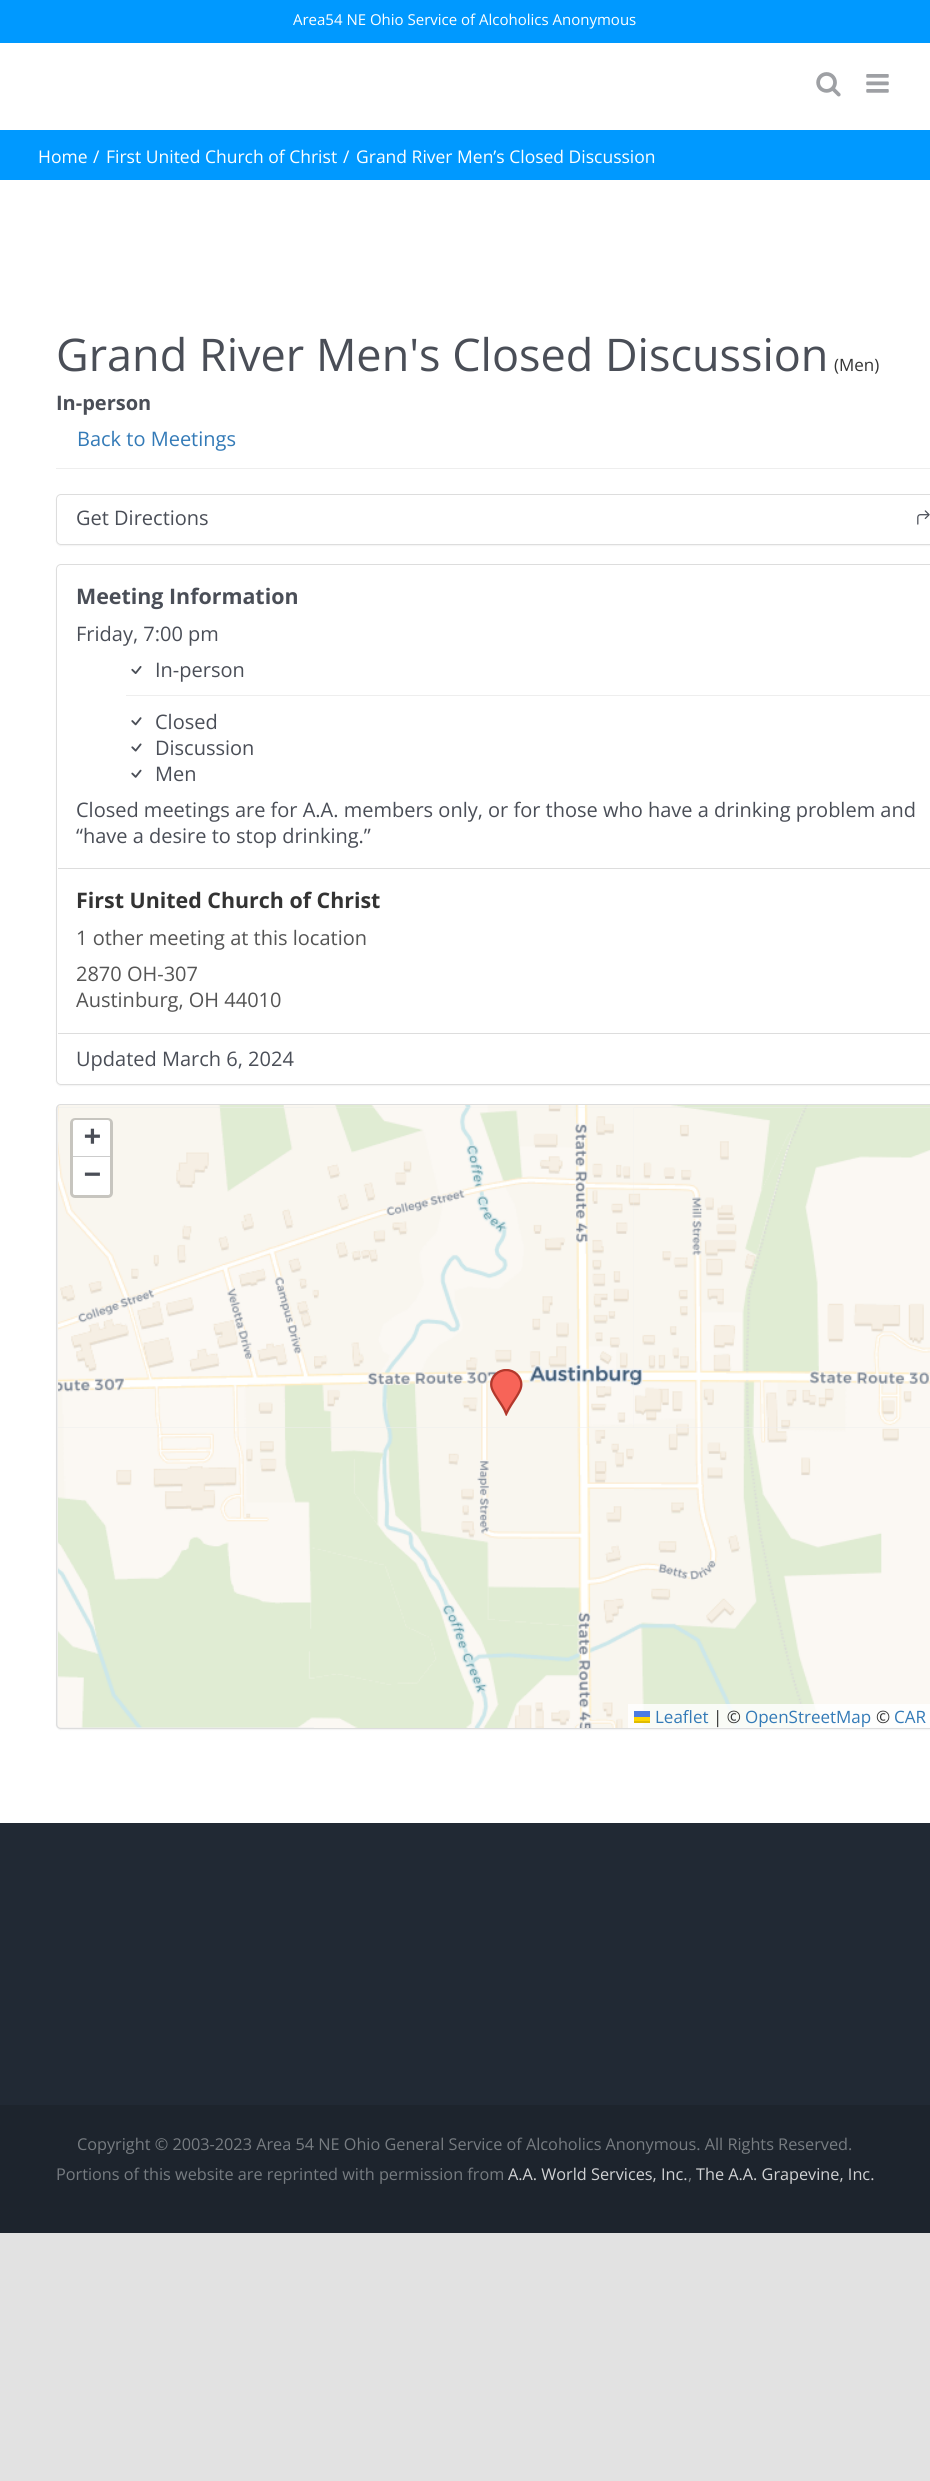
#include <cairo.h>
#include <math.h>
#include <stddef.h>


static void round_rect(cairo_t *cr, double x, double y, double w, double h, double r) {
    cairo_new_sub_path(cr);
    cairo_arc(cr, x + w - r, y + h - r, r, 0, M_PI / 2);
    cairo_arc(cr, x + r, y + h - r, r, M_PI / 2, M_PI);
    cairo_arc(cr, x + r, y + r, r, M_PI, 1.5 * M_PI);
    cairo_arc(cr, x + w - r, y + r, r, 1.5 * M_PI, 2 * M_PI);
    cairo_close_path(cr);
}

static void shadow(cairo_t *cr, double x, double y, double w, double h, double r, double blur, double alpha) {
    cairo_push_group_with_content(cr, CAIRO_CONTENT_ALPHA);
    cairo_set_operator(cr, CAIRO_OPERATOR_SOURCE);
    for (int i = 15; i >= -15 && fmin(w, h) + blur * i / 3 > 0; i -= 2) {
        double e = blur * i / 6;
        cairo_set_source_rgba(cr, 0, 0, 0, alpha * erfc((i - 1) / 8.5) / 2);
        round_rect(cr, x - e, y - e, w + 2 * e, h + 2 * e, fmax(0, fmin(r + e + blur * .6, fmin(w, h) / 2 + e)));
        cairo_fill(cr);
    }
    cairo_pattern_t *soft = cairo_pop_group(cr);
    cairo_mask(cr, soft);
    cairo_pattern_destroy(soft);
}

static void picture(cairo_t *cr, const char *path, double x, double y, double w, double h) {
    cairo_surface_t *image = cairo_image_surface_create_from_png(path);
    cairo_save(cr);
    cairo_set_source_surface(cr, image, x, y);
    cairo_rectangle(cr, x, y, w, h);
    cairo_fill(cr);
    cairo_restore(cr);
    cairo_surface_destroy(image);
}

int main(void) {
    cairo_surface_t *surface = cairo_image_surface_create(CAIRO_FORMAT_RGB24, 930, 2481);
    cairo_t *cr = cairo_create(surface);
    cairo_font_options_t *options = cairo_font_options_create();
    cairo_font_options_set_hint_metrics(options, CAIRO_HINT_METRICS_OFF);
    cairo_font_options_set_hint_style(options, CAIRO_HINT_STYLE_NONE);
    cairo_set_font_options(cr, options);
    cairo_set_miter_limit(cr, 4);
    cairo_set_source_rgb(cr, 0.886, 0.886, 0.886);
    cairo_paint(cr);
    cairo_set_source_rgb(cr, 1, 1, 1);
    cairo_rectangle(cr, 0, 43, 930, 1780);
    cairo_fill(cr);
    cairo_set_source_rgb(cr, 0, 0.6, 1);
    cairo_rectangle(cr, 0, 0, 930, 43);
    cairo_fill(cr);
    cairo_select_font_face(cr, "Open Sans", CAIRO_FONT_SLANT_NORMAL, CAIRO_FONT_WEIGHT_NORMAL);
    cairo_set_font_size(cr, 15);
    cairo_set_source_rgb(cr, 1, 1, 1);
    cairo_move_to(cr, 293, 25);
    cairo_show_text(cr, "Area54 NE Ohio Service of Alcoholics Anonymous");
    picture(cr, "img1.png", 816, 72, 25, 25);
    picture(cr, "img2.png", 866, 74, 23, 19);
    cairo_set_source_rgb(cr, 0, 0.6, 1);
    cairo_rectangle(cr, 0, 130, 930, 50);
    cairo_fill(cr);
    cairo_set_font_size(cr, 17.5);
    cairo_set_source_rgb(cr, 1, 1, 1);
    cairo_move_to(cr, 38, 163);
    cairo_show_text(cr, "Home");
    cairo_move_to(cr, 93, 163);
    cairo_show_text(cr, "/");
    cairo_move_to(cr, 106, 163);
    cairo_show_text(cr, "First United Church of Christ");
    cairo_move_to(cr, 343, 163);
    cairo_show_text(cr, "/");
    cairo_move_to(cr, 356, 163);
    cairo_show_text(cr, "Grand River Men’s Closed Discussion");
    cairo_set_source_rgb(cr, 0.933, 0.933, 0.933);
    cairo_rectangle(cr, 56, 468, 874, 1);
    cairo_fill(cr);
    cairo_set_font_size(cr, 45);
    cairo_set_source_rgb(cr, 0.29, 0.306, 0.341);
    cairo_move_to(cr, 56, 371);
    cairo_show_text(cr, "Grand River Men's Closed Discussion");
    cairo_set_font_size(cr, 17);
    cairo_set_source_rgb(cr, 0.2, 0.2, 0.2);
    cairo_move_to(cr, 834, 371);
    cairo_show_text(cr, "(Men)");
    cairo_select_font_face(cr, "Open Sans", CAIRO_FONT_SLANT_NORMAL, CAIRO_FONT_WEIGHT_BOLD);
    cairo_set_font_size(cr, 20);
    cairo_set_source_rgb(cr, 0.29, 0.306, 0.341);
    cairo_move_to(cr, 56, 410);
    cairo_show_text(cr, "In-person");
    cairo_select_font_face(cr, "Open Sans", CAIRO_FONT_SLANT_NORMAL, CAIRO_FONT_WEIGHT_NORMAL);
    cairo_set_source_rgb(cr, 0.2, 0.478, 0.718);
    cairo_move_to(cr, 77, 446);
    cairo_show_text(cr, "Back to Meetings");
    cairo_set_source_rgb(cr, 0, 0, 0);
    shadow(cr, 56, 495, 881, 51, 5, 0.5, 0.05);
    cairo_set_source_rgb(cr, 1, 1, 1);
    cairo_new_path(cr);
    cairo_move_to(cr, 61, 494);
    cairo_line_to(cr, 930, 494);
    cairo_line_to(cr, 930, 545);
    cairo_line_to(cr, 61, 545);
    cairo_curve_to(cr, 58, 545, 56, 543, 56, 540);
    cairo_line_to(cr, 56, 499);
    cairo_curve_to(cr, 56, 496, 58, 494, 61, 494);
    cairo_close_path(cr);
    cairo_fill(cr);
    round_rect(cr, 56.5, 494.5, 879, 50, 4.5);
    cairo_set_source_rgb(cr, 0.867, 0.867, 0.867);
    cairo_set_line_width(cr, 1);
    cairo_stroke(cr);
    cairo_set_source_rgb(cr, 0.29, 0.306, 0.341);
    cairo_move_to(cr, 76, 525);
    cairo_show_text(cr, "Get Directions");
    picture(cr, "img3.png", 917, 510, 13, 15);
    cairo_set_source_rgb(cr, 0, 0, 0);
    shadow(cr, 56, 565, 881, 521, 5, 0.5, 0.05);
    cairo_set_source_rgb(cr, 1, 1, 1);
    cairo_new_path(cr);
    cairo_move_to(cr, 61, 564);
    cairo_line_to(cr, 930, 564);
    cairo_line_to(cr, 930, 1085);
    cairo_line_to(cr, 61, 1085);
    cairo_curve_to(cr, 58, 1085, 56, 1083, 56, 1080);
    cairo_line_to(cr, 56, 569);
    cairo_curve_to(cr, 56, 566, 58, 564, 61, 564);
    cairo_close_path(cr);
    cairo_fill(cr);
    round_rect(cr, 56.5, 564.5, 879, 520, 4.5);
    cairo_set_source_rgb(cr, 0.867, 0.867, 0.867);
    cairo_stroke(cr);
    cairo_rectangle(cr, 58, 868, 872, 1);
    cairo_fill(cr);
    cairo_select_font_face(cr, "Open Sans", CAIRO_FONT_SLANT_NORMAL, CAIRO_FONT_WEIGHT_BOLD);
    cairo_set_font_size(cr, 21.4);
    cairo_set_source_rgb(cr, 0.29, 0.306, 0.341);
    cairo_move_to(cr, 76, 604);
    cairo_show_text(cr, "Meeting Information");
    cairo_select_font_face(cr, "Open Sans", CAIRO_FONT_SLANT_NORMAL, CAIRO_FONT_WEIGHT_NORMAL);
    cairo_set_font_size(cr, 20);
    cairo_move_to(cr, 76, 641);
    cairo_show_text(cr, "Friday, 7:00 pm");
    picture(cr, "img4.png", 131, 666, 11, 8);
    cairo_move_to(cr, 155, 677);
    cairo_show_text(cr, "In-person");
    cairo_set_source_rgb(cr, 0.933, 0.933, 0.933);
    cairo_rectangle(cr, 126, 695, 804, 1);
    cairo_fill(cr);
    picture(cr, "img5.png", 131, 717, 11, 9);
    cairo_set_source_rgb(cr, 0.29, 0.306, 0.341);
    cairo_move_to(cr, 155, 729);
    cairo_show_text(cr, "Closed");
    picture(cr, "img6.png", 131, 743, 11, 9);
    cairo_move_to(cr, 155, 755);
    cairo_show_text(cr, "Discussion");
    picture(cr, "img7.png", 131, 769, 11, 9);
    cairo_move_to(cr, 155, 781);
    cairo_show_text(cr, "Men");
    cairo_move_to(cr, 76, 817);
    cairo_show_text(cr, "Closed meetings are for A.A. members only, or for those who have a drinking problem and");
    cairo_move_to(cr, 76, 843);
    cairo_show_text(cr, "“have a desire to stop drinking.”");
    cairo_select_font_face(cr, "Open Sans", CAIRO_FONT_SLANT_NORMAL, CAIRO_FONT_WEIGHT_BOLD);
    cairo_set_font_size(cr, 21.4);
    cairo_set_source_rgb(cr, 0.2, 0.2, 0.2);
    cairo_move_to(cr, 76, 908);
    cairo_show_text(cr, "First United Church of Christ");
    cairo_select_font_face(cr, "Open Sans", CAIRO_FONT_SLANT_NORMAL, CAIRO_FONT_WEIGHT_NORMAL);
    cairo_set_font_size(cr, 20);
    cairo_set_source_rgb(cr, 0.333, 0.333, 0.333);
    cairo_move_to(cr, 76, 945);
    cairo_show_text(cr, "1 other meeting at this location");
    cairo_move_to(cr, 76, 981);
    cairo_show_text(cr, "2870 OH-307");
    cairo_move_to(cr, 76, 1007);
    cairo_show_text(cr, "Austinburg, OH 44010");
    cairo_set_source_rgb(cr, 0.867, 0.867, 0.867);
    cairo_rectangle(cr, 58, 1033, 872, 1);
    cairo_fill(cr);
    cairo_set_source_rgb(cr, 0.29, 0.306, 0.341);
    cairo_move_to(cr, 76, 1066);
    cairo_show_text(cr, "Updated March 6, 2024");
    cairo_set_source_rgb(cr, 0, 0, 0);
    shadow(cr, 56, 1105, 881, 625, 5, 0.5, 0.05);
    cairo_set_source_rgb(cr, 0.933, 0.933, 0.933);
    cairo_new_path(cr);
    cairo_move_to(cr, 61, 1104);
    cairo_line_to(cr, 930, 1104);
    cairo_line_to(cr, 930, 1729);
    cairo_line_to(cr, 61, 1729);
    cairo_curve_to(cr, 58, 1729, 56, 1727, 56, 1724);
    cairo_line_to(cr, 56, 1109);
    cairo_curve_to(cr, 56, 1106, 58, 1104, 61, 1104);
    cairo_close_path(cr);
    cairo_fill(cr);
    round_rect(cr, 56.5, 1104.5, 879, 624, 4.5);
    cairo_set_source_rgb(cr, 0.867, 0.867, 0.867);
    cairo_stroke(cr);
    picture(cr, "img12.png", 313, 1107, 321, 321);
    picture(cr, "img8.png", 58, 1105, 256, 3);
    picture(cr, "img9.png", 314, 1105, 320, 3);
    picture(cr, "img10.png", 634, 1105, 296, 3);
    picture(cr, "img11.png", 58, 1108, 256, 320);
    picture(cr, "img13.png", 634, 1108, 296, 320);
    picture(cr, "img14.png", 58, 1428, 256, 300);
    picture(cr, "img15.png", 314, 1428, 320, 300);
    picture(cr, "img16.png", 634, 1428, 296, 300);
    picture(cr, "img17.png", 490, 1369, 33, 47);
    round_rect(cr, 71.5, 1119.5, 40, 77, 3.5);
    cairo_set_source_rgb(cr, 0.78, 0.773, 0.749);
    cairo_set_line_width(cr, 3);
    cairo_stroke(cr);
    cairo_set_source_rgb(cr, 1, 1, 1);
    cairo_new_path(cr);
    cairo_move_to(cr, 75.5, 1120);
    cairo_line_to(cr, 107.5, 1120);
    cairo_curve_to(cr, 109, 1120, 110, 1121, 110, 1122.5);
    cairo_line_to(cr, 110, 1158);
    cairo_line_to(cr, 73, 1158);
    cairo_line_to(cr, 73, 1122.5);
    cairo_curve_to(cr, 73, 1121, 74, 1120, 75.5, 1120);
    cairo_close_path(cr);
    cairo_fill(cr);
    cairo_set_source_rgb(cr, 0.8, 0.8, 0.8);
    cairo_rectangle(cr, 73, 1156, 37, 1);
    cairo_fill(cr);
    cairo_select_font_face(cr, "DejaVu Sans Mono", CAIRO_FONT_SLANT_NORMAL, CAIRO_FONT_WEIGHT_BOLD);
    cairo_set_font_size(cr, 28);
    cairo_set_source_rgb(cr, 0.29, 0.306, 0.341);
    cairo_move_to(cr, 84, 1145);
    cairo_show_text(cr, "+");
    cairo_set_source_rgb(cr, 1, 1, 1);
    cairo_new_path(cr);
    cairo_move_to(cr, 73, 1158);
    cairo_line_to(cr, 110, 1158);
    cairo_line_to(cr, 110, 1192.5);
    cairo_curve_to(cr, 110, 1194, 109, 1195, 107.5, 1195);
    cairo_line_to(cr, 75.5, 1195);
    cairo_curve_to(cr, 74, 1195, 73, 1194, 73, 1192.5);
    cairo_close_path(cr);
    cairo_fill(cr);
    cairo_set_source_rgb(cr, 0.29, 0.306, 0.341);
    cairo_move_to(cr, 84, 1183);
    cairo_show_text(cr, "−");
    cairo_set_source_rgba(cr, 1, 1, 1, 0.8);
    cairo_rectangle(cr, 628, 1704, 302, 24);
    cairo_fill(cr);
    cairo_select_font_face(cr, "Open Sans", CAIRO_FONT_SLANT_NORMAL, CAIRO_FONT_WEIGHT_NORMAL);
    cairo_set_font_size(cr, 17);
    cairo_set_source_rgb(cr, 0.2, 0.478, 0.718);
    cairo_move_to(cr, 655, 1723);
    cairo_show_text(cr, "Leaflet");
    cairo_set_source_rgb(cr, 0.298, 0.482, 0.882);
    cairo_rectangle(cr, 634, 1711, 16, 6);
    cairo_fill(cr);
    cairo_set_source_rgb(cr, 1, 0.835, 0);
    cairo_rectangle(cr, 634, 1717, 16, 4);
    cairo_fill(cr);
    cairo_set_source_rgb(cr, 0.878, 0.737, 0);
    cairo_rectangle(cr, 634, 1721, 16, 2);
    cairo_fill(cr);
    cairo_set_source_rgb(cr, 0.2, 0.2, 0.2);
    cairo_move_to(cr, 713, 1723);
    cairo_show_text(cr, "| ©");
    cairo_set_source_rgb(cr, 0.2, 0.478, 0.718);
    cairo_move_to(cr, 745, 1723);
    cairo_show_text(cr, "OpenStreetMap");
    cairo_set_source_rgb(cr, 0.2, 0.2, 0.2);
    cairo_move_to(cr, 876, 1723);
    cairo_show_text(cr, "©");
    cairo_set_source_rgb(cr, 0.2, 0.478, 0.718);
    cairo_move_to(cr, 894, 1723);
    cairo_show_text(cr, "CAR");
    cairo_set_source_rgb(cr, 0.129, 0.161, 0.204);
    cairo_rectangle(cr, 0, 1823, 930, 282);
    cairo_fill(cr);
    cairo_set_source_rgb(cr, 0.114, 0.141, 0.176);
    cairo_rectangle(cr, 0, 2105, 930, 128);
    cairo_fill(cr);
    cairo_set_font_size(cr, 16.25);
    cairo_set_source_rgb(cr, 0.467, 0.486, 0.506);
    cairo_move_to(cr, 77, 2150);
    cairo_show_text(cr, "Copyright © 2003-2023 Area 54 NE Ohio General Service of Alcoholics Anonymous. All Rights Reserved.");
    cairo_move_to(cr, 56, 2180);
    cairo_show_text(cr, "Portions of this website are reprinted with permission from");
    cairo_set_source_rgb(cr, 0.824, 0.827, 0.835);
    cairo_move_to(cr, 508, 2180);
    cairo_show_text(cr, "A.A. World Services, Inc.");
    cairo_set_source_rgb(cr, 0.467, 0.486, 0.506);
    cairo_move_to(cr, 688, 2180);
    cairo_show_text(cr, ",");
    cairo_set_source_rgb(cr, 0.824, 0.827, 0.835);
    cairo_move_to(cr, 696, 2180);
    cairo_show_text(cr, "The A.A. Grapevine, Inc.");
    cairo_surface_write_to_png(surface, "page.png");
    cairo_font_options_destroy(options);
    cairo_destroy(cr);
    cairo_surface_destroy(surface);
    return 0;
}
